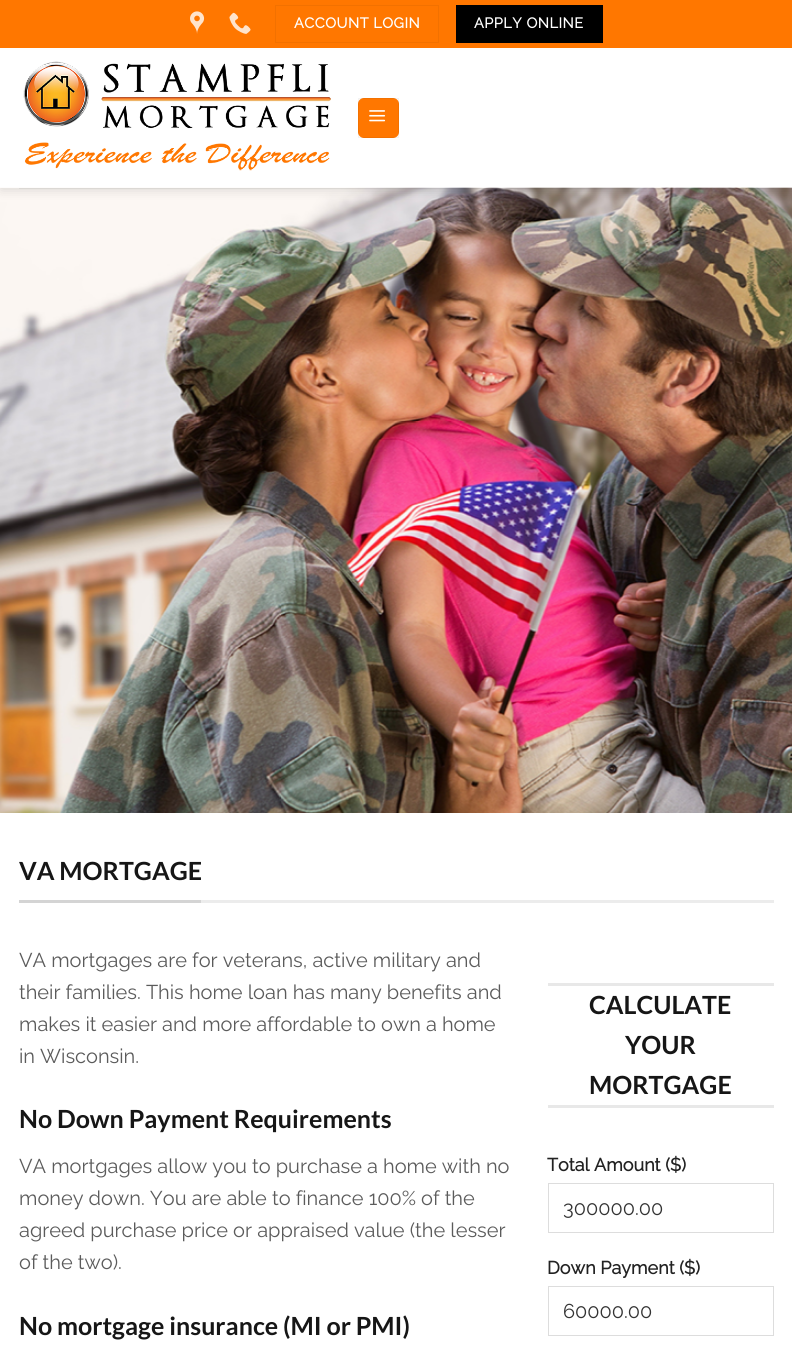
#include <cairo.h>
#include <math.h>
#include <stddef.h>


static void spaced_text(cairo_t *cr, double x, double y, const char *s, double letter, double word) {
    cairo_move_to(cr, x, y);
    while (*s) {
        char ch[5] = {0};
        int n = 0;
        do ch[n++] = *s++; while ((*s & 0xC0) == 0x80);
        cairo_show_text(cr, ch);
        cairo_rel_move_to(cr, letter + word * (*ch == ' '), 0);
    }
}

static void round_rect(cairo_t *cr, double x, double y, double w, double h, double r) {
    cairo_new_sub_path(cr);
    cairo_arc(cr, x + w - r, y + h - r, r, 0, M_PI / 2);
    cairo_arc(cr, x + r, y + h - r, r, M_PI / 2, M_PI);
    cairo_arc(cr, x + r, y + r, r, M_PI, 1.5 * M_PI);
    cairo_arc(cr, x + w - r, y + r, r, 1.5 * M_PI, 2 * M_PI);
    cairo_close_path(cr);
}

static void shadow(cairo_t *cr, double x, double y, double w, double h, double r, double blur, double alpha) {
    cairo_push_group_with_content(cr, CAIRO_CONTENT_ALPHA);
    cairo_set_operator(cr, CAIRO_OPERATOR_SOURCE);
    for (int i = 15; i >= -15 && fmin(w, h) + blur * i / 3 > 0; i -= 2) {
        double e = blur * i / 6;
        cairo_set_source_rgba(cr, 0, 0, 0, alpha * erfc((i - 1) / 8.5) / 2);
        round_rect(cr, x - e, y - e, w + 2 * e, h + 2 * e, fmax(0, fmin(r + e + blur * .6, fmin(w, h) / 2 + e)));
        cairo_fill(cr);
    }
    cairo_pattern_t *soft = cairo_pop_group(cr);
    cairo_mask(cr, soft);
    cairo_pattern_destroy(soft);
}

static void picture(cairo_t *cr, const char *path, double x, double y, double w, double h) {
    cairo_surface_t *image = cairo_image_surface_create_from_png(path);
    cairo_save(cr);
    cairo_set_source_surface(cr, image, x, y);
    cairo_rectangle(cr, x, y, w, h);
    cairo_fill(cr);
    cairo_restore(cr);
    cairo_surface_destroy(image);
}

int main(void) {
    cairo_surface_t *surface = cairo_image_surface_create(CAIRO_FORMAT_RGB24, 792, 1361);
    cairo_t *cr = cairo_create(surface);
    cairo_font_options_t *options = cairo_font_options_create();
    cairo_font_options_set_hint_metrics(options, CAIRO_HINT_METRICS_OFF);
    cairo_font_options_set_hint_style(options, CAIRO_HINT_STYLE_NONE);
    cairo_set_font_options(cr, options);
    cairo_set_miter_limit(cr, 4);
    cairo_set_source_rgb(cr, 1, 1, 1);
    cairo_paint(cr);
    picture(cr, "img5.png", 0, 187, 792, 626);
    cairo_save(cr);
    cairo_set_fill_rule(cr, CAIRO_FILL_RULE_EVEN_ODD);
    cairo_new_path(cr);
    cairo_move_to(cr, 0, 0);
    cairo_line_to(cr, 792, 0);
    cairo_line_to(cr, 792, 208);
    cairo_line_to(cr, 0, 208);
    cairo_close_path(cr);
    cairo_move_to(cr, 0, 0);
    cairo_line_to(cr, 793, 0);
    cairo_line_to(cr, 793, 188);
    cairo_line_to(cr, 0, 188);
    cairo_close_path(cr);
    cairo_clip(cr);
    cairo_set_source_rgb(cr, 0, 0, 0);
    shadow(cr, 1, 1, 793, 188, 0, 6, 0.15);
    cairo_restore(cr);
    cairo_set_source_rgb(cr, 1, 0.467, 0);
    cairo_rectangle(cr, 0, 0, 792, 48);
    cairo_fill(cr);
    picture(cr, "img1.png", 190, 11, 15, 23);
    picture(cr, "img2.png", 229, 12, 22, 22);
    cairo_rectangle(cr, 275.5, 5.5, 163, 37);
    cairo_set_source_rgb(cr, 0.949, 0.443, 0);
    cairo_set_line_width(cr, 1);
    cairo_stroke(cr);
    cairo_select_font_face(cr, "Raleway", CAIRO_FONT_SLANT_NORMAL, CAIRO_FONT_WEIGHT_BOLD);
    cairo_set_font_size(cr, 14.5);
    cairo_set_source_rgb(cr, 1, 1, 1);
    spaced_text(cr, 294, 28, "ACCOUNT LOGIN", 0.5, 0);
    cairo_set_source_rgb(cr, 0, 0, 0);
    cairo_rectangle(cr, 456, 5, 147, 38);
    cairo_fill(cr);
    cairo_set_source_rgb(cr, 1, 1, 1);
    spaced_text(cr, 474, 28, "APPLY ONLINE", 0.5, 0);
    picture(cr, "img3.png", 23, 61, 308, 110);
    cairo_set_source_rgb(cr, 1, 0.467, 0);
    round_rect(cr, 358, 98, 41, 40, 6);
    cairo_fill(cr);
    cairo_rectangle(cr, 358.5, 98.5, 40, 39);
    cairo_set_source_rgba(cr, 0, 0, 0, 0.05);
    cairo_stroke(cr);
    picture(cr, "img4.png", 369, 110, 17, 12);
    cairo_set_source_rgba(cr, 0.357, 0.357, 0.357, 0.1);
    cairo_rectangle(cr, 19, 188, 755, 1);
    cairo_fill(cr);
    cairo_set_source_rgba(cr, 1, 1, 1, 0.67);
    cairo_rectangle(cr, 0, 187, 792, 1);
    cairo_fill(cr);
    cairo_set_source_rgb(cr, 0.925, 0.925, 0.925);
    cairo_rectangle(cr, 201, 900, 573, 3);
    cairo_fill(cr);
    cairo_set_source_rgb(cr, 0.831, 0.831, 0.831);
    cairo_rectangle(cr, 19, 900, 182, 3);
    cairo_fill(cr);
    cairo_select_font_face(cr, "Lato", CAIRO_FONT_SLANT_NORMAL, CAIRO_FONT_WEIGHT_BOLD);
    cairo_set_font_size(cr, 25);
    cairo_set_source_rgb(cr, 0.086, 0.086, 0.086);
    cairo_move_to(cr, 19, 880);
    cairo_show_text(cr, "VA MORTGAGE");
    cairo_select_font_face(cr, "Raleway", CAIRO_FONT_SLANT_NORMAL, CAIRO_FONT_WEIGHT_NORMAL);
    cairo_set_font_size(cr, 20);
    cairo_set_source_rgb(cr, 0.357, 0.357, 0.357);
    cairo_move_to(cr, 19, 967);
    cairo_show_text(cr, "VA mortgages are for veterans, active military and");
    cairo_move_to(cr, 19, 999);
    cairo_show_text(cr, "their families. This home loan has many benefits and");
    cairo_move_to(cr, 19, 1031);
    cairo_show_text(cr, "makes it easier and more affordable to own a home");
    cairo_move_to(cr, 19, 1063);
    cairo_show_text(cr, "in Wisconsin.");
    cairo_select_font_face(cr, "Lato", CAIRO_FONT_SLANT_NORMAL, CAIRO_FONT_WEIGHT_BOLD);
    cairo_set_font_size(cr, 25);
    cairo_set_source_rgb(cr, 0.086, 0.086, 0.086);
    cairo_move_to(cr, 19, 1128);
    cairo_show_text(cr, "No Down Payment Requirements");
    cairo_select_font_face(cr, "Raleway", CAIRO_FONT_SLANT_NORMAL, CAIRO_FONT_WEIGHT_NORMAL);
    cairo_set_font_size(cr, 20);
    cairo_set_source_rgb(cr, 0.357, 0.357, 0.357);
    cairo_move_to(cr, 19, 1173);
    cairo_show_text(cr, "VA mortgages allow you to purchase a home with no");
    cairo_move_to(cr, 19, 1205);
    cairo_show_text(cr, "money down. You are able to finance 100% of the");
    cairo_move_to(cr, 19, 1237);
    cairo_show_text(cr, "agreed purchase price or appraised value (the lesser");
    cairo_move_to(cr, 19, 1269);
    cairo_show_text(cr, "of the two).");
    cairo_select_font_face(cr, "Lato", CAIRO_FONT_SLANT_NORMAL, CAIRO_FONT_WEIGHT_BOLD);
    cairo_set_font_size(cr, 25);
    cairo_set_source_rgb(cr, 0.086, 0.086, 0.086);
    cairo_move_to(cr, 19, 1335);
    cairo_show_text(cr, "No mortgage insurance (MI or PMI)");
    cairo_set_source_rgb(cr, 0.91, 0.91, 0.91);
    cairo_rectangle(cr, 548, 983, 226, 3);
    cairo_fill(cr);
    cairo_set_source_rgb(cr, 0.086, 0.086, 0.086);
    cairo_move_to(cr, 589, 1014);
    cairo_show_text(cr, "CALCULATE");
    cairo_move_to(cr, 625, 1054);
    cairo_show_text(cr, "YOUR");
    cairo_move_to(cr, 589, 1094);
    cairo_show_text(cr, "MORTGAGE");
    cairo_set_source_rgb(cr, 0.91, 0.91, 0.91);
    cairo_rectangle(cr, 548, 1105, 226, 3);
    cairo_fill(cr);
    cairo_select_font_face(cr, "Raleway", CAIRO_FONT_SLANT_NORMAL, CAIRO_FONT_WEIGHT_BOLD);
    cairo_set_font_size(cr, 18);
    cairo_set_source_rgb(cr, 0.133, 0.133, 0.133);
    cairo_move_to(cr, 547, 1171);
    cairo_show_text(cr, "Total Amount ($)");
    cairo_rectangle(cr, 548.5, 1183.5, 225, 49);
    cairo_set_source_rgb(cr, 0.867, 0.867, 0.867);
    cairo_stroke(cr);
    cairo_select_font_face(cr, "Raleway", CAIRO_FONT_SLANT_NORMAL, CAIRO_FONT_WEIGHT_NORMAL);
    cairo_set_font_size(cr, 20);
    cairo_set_source_rgb(cr, 0.2, 0.2, 0.2);
    cairo_move_to(cr, 563, 1215);
    cairo_show_text(cr, "300000.00");
    cairo_select_font_face(cr, "Raleway", CAIRO_FONT_SLANT_NORMAL, CAIRO_FONT_WEIGHT_BOLD);
    cairo_set_font_size(cr, 18);
    cairo_set_source_rgb(cr, 0.133, 0.133, 0.133);
    cairo_move_to(cr, 547, 1274);
    cairo_show_text(cr, "Down Payment ($)");
    cairo_rectangle(cr, 548.5, 1286.5, 225, 49);
    cairo_set_source_rgb(cr, 0.867, 0.867, 0.867);
    cairo_stroke(cr);
    cairo_select_font_face(cr, "Raleway", CAIRO_FONT_SLANT_NORMAL, CAIRO_FONT_WEIGHT_NORMAL);
    cairo_set_font_size(cr, 20);
    cairo_set_source_rgb(cr, 0.2, 0.2, 0.2);
    cairo_move_to(cr, 563, 1318);
    cairo_show_text(cr, "60000.00");
    cairo_surface_write_to_png(surface, "page.png");
    cairo_font_options_destroy(options);
    cairo_destroy(cr);
    cairo_surface_destroy(surface);
    return 0;
}
